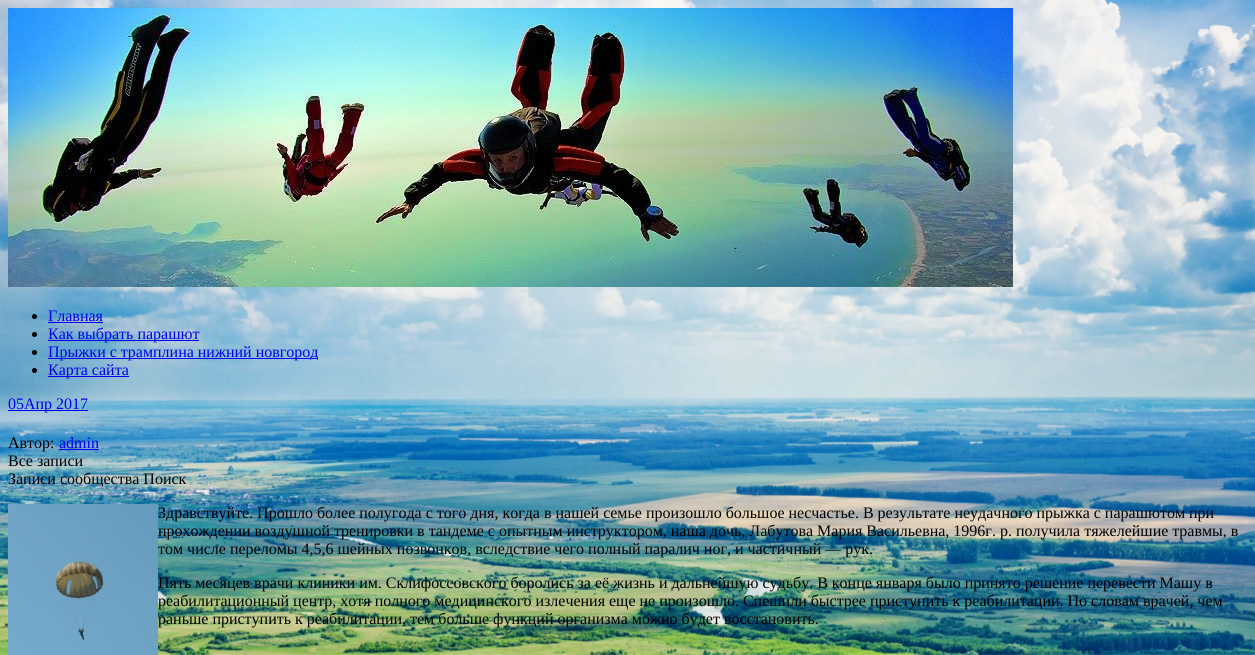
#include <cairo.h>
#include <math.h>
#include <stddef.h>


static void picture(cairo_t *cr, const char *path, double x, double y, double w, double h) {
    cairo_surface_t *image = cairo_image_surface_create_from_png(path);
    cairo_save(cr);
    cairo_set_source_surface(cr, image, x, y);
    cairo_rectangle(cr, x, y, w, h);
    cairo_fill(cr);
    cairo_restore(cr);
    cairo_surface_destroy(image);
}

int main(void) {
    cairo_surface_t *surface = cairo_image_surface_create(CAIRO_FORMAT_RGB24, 1255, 655);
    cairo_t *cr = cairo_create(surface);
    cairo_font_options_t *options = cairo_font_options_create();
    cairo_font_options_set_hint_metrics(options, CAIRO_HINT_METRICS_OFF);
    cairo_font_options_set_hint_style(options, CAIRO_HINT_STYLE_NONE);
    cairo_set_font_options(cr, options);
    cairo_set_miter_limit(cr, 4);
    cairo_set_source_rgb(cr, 1, 1, 1);
    cairo_paint(cr);
    picture(cr, "img1.png", 0, 0, 1255, 655);
    picture(cr, "img2.png", 8, 8, 1005, 279);
    cairo_set_source_rgb(cr, 0, 0, 0);
    cairo_arc(cr, 34.5, 316.5, 2.5, 0, 2 * M_PI);
    cairo_fill(cr);
    cairo_select_font_face(cr, "Liberation Serif", CAIRO_FONT_SLANT_NORMAL, CAIRO_FONT_WEIGHT_NORMAL);
    cairo_set_font_size(cr, 16);
    cairo_set_source_rgb(cr, 0, 0, 0.933);
    cairo_move_to(cr, 48, 321);
    cairo_show_text(cr, "Главная");
    cairo_rectangle(cr, 48, 322, 55, 1);
    cairo_fill(cr);
    cairo_set_source_rgb(cr, 0, 0, 0);
    cairo_arc(cr, 34.5, 334.5, 2.5, 0, 2 * M_PI);
    cairo_fill(cr);
    cairo_set_source_rgb(cr, 0, 0, 0.933);
    cairo_rectangle(cr, 48, 340, 151, 1);
    cairo_fill(cr);
    cairo_move_to(cr, 48, 339);
    cairo_show_text(cr, "Как выбрать парашют");
    cairo_set_source_rgb(cr, 0, 0, 0);
    cairo_new_path(cr);
    cairo_arc(cr, 34.5, 352.5, 2.5, 0, 2 * M_PI);
    cairo_fill(cr);
    cairo_set_source_rgb(cr, 0, 0, 0.933);
    cairo_rectangle(cr, 48, 358, 270, 1);
    cairo_fill(cr);
    cairo_move_to(cr, 48, 357);
    cairo_show_text(cr, "Прыжки с трамплина нижний новгород");
    cairo_set_source_rgb(cr, 0, 0, 0);
    cairo_new_path(cr);
    cairo_arc(cr, 34.5, 370.5, 2.5, 0, 2 * M_PI);
    cairo_fill(cr);
    cairo_set_source_rgb(cr, 0, 0, 0.933);
    cairo_rectangle(cr, 48, 376, 81, 1);
    cairo_fill(cr);
    cairo_move_to(cr, 48, 375);
    cairo_show_text(cr, "Карта сайта");
    cairo_rectangle(cr, 8, 410, 80, 1);
    cairo_fill(cr);
    cairo_move_to(cr, 8, 409);
    cairo_show_text(cr, "05Апр 2017");
    cairo_set_source_rgb(cr, 0, 0, 0);
    cairo_move_to(cr, 8, 448);
    cairo_show_text(cr, "Автор:");
    cairo_set_source_rgb(cr, 0, 0, 0.933);
    cairo_move_to(cr, 59, 448);
    cairo_show_text(cr, "admin");
    cairo_rectangle(cr, 59, 449, 40, 1);
    cairo_fill(cr);
    cairo_set_source_rgb(cr, 0, 0, 0);
    cairo_move_to(cr, 8, 466);
    cairo_show_text(cr, "Все записи");
    cairo_move_to(cr, 8, 484);
    cairo_show_text(cr, "Записи сообщества Поиск");
    picture(cr, "img3.png", 8, 504, 150, 151);
    cairo_move_to(cr, 158, 518);
    cairo_show_text(cr, "Здравствуйте. Прошло более полугода с того дня, когда в нашей семье произошло большое несчастье. В результате неудачного прыжка с парашютом при");
    cairo_move_to(cr, 158, 536);
    cairo_show_text(cr, "прохождении воздушной тренировки в тандеме с опытным инструктором, наша дочь, Лабутова Мария Васильевна, 1996г. р. получила тяжелейшие травмы, в");
    cairo_move_to(cr, 158, 554);
    cairo_show_text(cr, "том числе переломы 4,5,6 шейных позвонков, вследствие чего полный паралич ног, и частичный — рук.");
    cairo_move_to(cr, 158, 588);
    cairo_show_text(cr, "Пять месяцев врачи клиники им. Склифоссовского боролись за её жизнь и дальнейшую судьбу. В конце января было принято решение перевести Машу в");
    cairo_move_to(cr, 158, 606);
    cairo_show_text(cr, "реабилитационный центр, хотя полного медицинского излечения еще не произошло. Спешили быстрее приступить к реабилитации. По словам врачей, чем");
    cairo_move_to(cr, 158, 624);
    cairo_show_text(cr, "раньше приступить к реабилитации, тем больше функций организма можно будет восстановить.");
    cairo_surface_write_to_png(surface, "page.png");
    cairo_font_options_destroy(options);
    cairo_destroy(cr);
    cairo_surface_destroy(surface);
    return 0;
}
